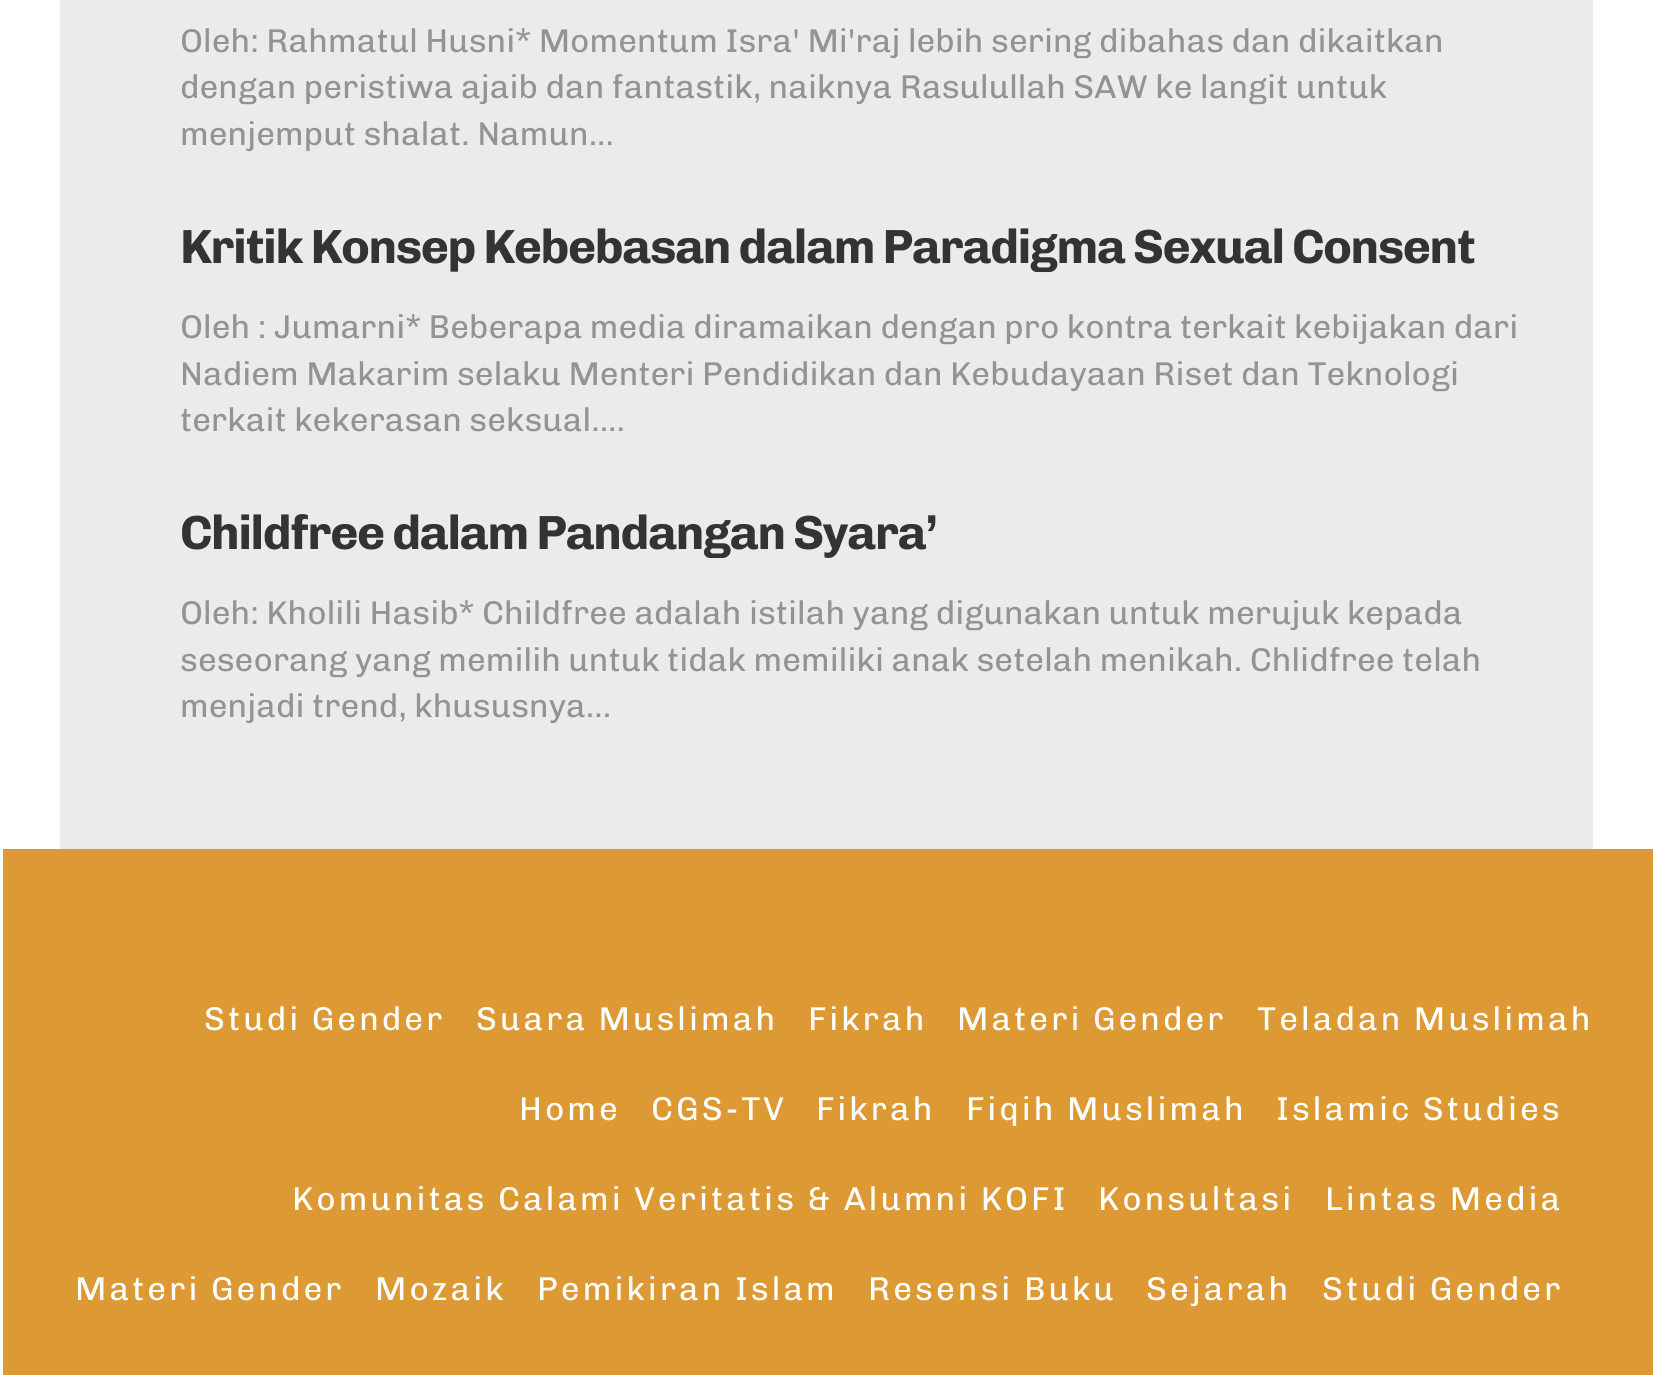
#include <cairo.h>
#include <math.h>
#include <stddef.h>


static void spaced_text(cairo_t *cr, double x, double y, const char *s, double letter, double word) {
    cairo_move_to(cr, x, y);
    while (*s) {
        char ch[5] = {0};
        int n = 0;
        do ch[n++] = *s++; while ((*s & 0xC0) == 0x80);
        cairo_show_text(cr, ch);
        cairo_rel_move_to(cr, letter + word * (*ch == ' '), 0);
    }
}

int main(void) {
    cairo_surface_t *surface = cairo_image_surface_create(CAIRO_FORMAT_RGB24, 1653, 1375);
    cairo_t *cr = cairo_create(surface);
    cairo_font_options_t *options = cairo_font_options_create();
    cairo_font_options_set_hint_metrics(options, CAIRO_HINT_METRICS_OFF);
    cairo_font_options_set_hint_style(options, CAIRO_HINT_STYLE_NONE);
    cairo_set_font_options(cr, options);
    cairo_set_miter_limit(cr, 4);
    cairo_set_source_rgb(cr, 1, 1, 1);
    cairo_paint(cr);
    cairo_set_source_rgb(cr, 0.918, 0.918, 0.918);
    cairo_rectangle(cr, 60, 0, 1533, 849);
    cairo_fill(cr);
    cairo_select_font_face(cr, "Chivo", CAIRO_FONT_SLANT_NORMAL, CAIRO_FONT_WEIGHT_NORMAL);
    cairo_set_font_size(cr, 33);
    cairo_set_source_rgb(cr, 0.576, 0.576, 0.576);
    cairo_move_to(cr, 180, 52);
    cairo_show_text(cr, "Oleh: Rahmatul Husni* Momentum Isra' Mi'raj lebih sering dibahas dan dikaitkan");
    cairo_move_to(cr, 180, 98);
    cairo_show_text(cr, "dengan peristiwa ajaib dan fantastik, naiknya Rasulullah SAW ke langit untuk");
    cairo_move_to(cr, 180, 145);
    cairo_show_text(cr, "menjemput shalat. Namun...");
    cairo_select_font_face(cr, "Chivo", CAIRO_FONT_SLANT_NORMAL, CAIRO_FONT_WEIGHT_BOLD);
    cairo_set_font_size(cr, 48);
    cairo_set_source_rgb(cr, 0.2, 0.2, 0.2);
    spaced_text(cr, 180, 263, "Kritik Konsep Kebebasan dalam Paradigma Sexual Consent", -1.5, 0);
    cairo_select_font_face(cr, "Chivo", CAIRO_FONT_SLANT_NORMAL, CAIRO_FONT_WEIGHT_NORMAL);
    cairo_set_font_size(cr, 33);
    cairo_set_source_rgb(cr, 0.576, 0.576, 0.576);
    cairo_move_to(cr, 180, 338);
    cairo_show_text(cr, "Oleh : Jumarni* Beberapa media diramaikan dengan pro kontra terkait kebijakan dari");
    cairo_move_to(cr, 180, 385);
    cairo_show_text(cr, "Nadiem Makarim selaku Menteri Pendidikan dan Kebudayaan Riset dan Teknologi");
    cairo_move_to(cr, 180, 431);
    cairo_show_text(cr, "terkait kekerasan seksual....");
    cairo_select_font_face(cr, "Chivo", CAIRO_FONT_SLANT_NORMAL, CAIRO_FONT_WEIGHT_BOLD);
    cairo_set_font_size(cr, 48);
    cairo_set_source_rgb(cr, 0.2, 0.2, 0.2);
    spaced_text(cr, 180, 549, "Childfree dalam Pandangan Syara’", -1.5, 0);
    cairo_select_font_face(cr, "Chivo", CAIRO_FONT_SLANT_NORMAL, CAIRO_FONT_WEIGHT_NORMAL);
    cairo_set_font_size(cr, 33);
    cairo_set_source_rgb(cr, 0.576, 0.576, 0.576);
    cairo_move_to(cr, 180, 624);
    cairo_show_text(cr, "Oleh: Kholili Hasib* Childfree adalah istilah yang digunakan untuk merujuk kepada");
    cairo_move_to(cr, 180, 671);
    cairo_show_text(cr, "seseorang yang memilih untuk tidak memiliki anak setelah menikah. Chlidfree telah");
    cairo_move_to(cr, 180, 717);
    cairo_show_text(cr, "menjadi trend, khususnya...");
    cairo_set_source_rgb(cr, 0.867, 0.6, 0.2);
    cairo_rectangle(cr, 3, 849, 1650, 526);
    cairo_fill(cr);
    cairo_set_source_rgb(cr, 1, 1, 1);
    spaced_text(cr, 204, 1030, "Studi Gender", 3, 0);
    spaced_text(cr, 476, 1030, "Suara Muslimah", 3, 0);
    spaced_text(cr, 808, 1030, "Fikrah", 3, 0);
    spaced_text(cr, 957, 1030, "Materi Gender", 3, 0);
    spaced_text(cr, 1257, 1030, "Teladan Muslimah", 3, 0);
    spaced_text(cr, 519, 1120, "Home", 3, 0);
    spaced_text(cr, 651, 1120, "CGS-TV", 3, 0);
    spaced_text(cr, 816, 1120, "Fikrah", 3, 0);
    spaced_text(cr, 966, 1120, "Fiqih Muslimah", 3, 0);
    spaced_text(cr, 1276, 1120, "Islamic Studies", 3, 0);
    spaced_text(cr, 292, 1210, "Komunitas Calami Veritatis & Alumni KOFI", 3, 0);
    spaced_text(cr, 1098, 1210, "Konsultasi", 3, 0);
    spaced_text(cr, 1325, 1210, "Lintas Media", 3, 0);
    spaced_text(cr, 75, 1300, "Materi Gender", 3, 0);
    spaced_text(cr, 375, 1300, "Mozaik", 3, 0);
    spaced_text(cr, 537, 1300, "Pemikiran Islam", 3, 0);
    spaced_text(cr, 868, 1300, "Resensi Buku", 3, 0);
    spaced_text(cr, 1146, 1300, "Sejarah", 3, 0);
    spaced_text(cr, 1322, 1300, "Studi Gender", 3, 0);
    cairo_surface_write_to_png(surface, "page.png");
    cairo_font_options_destroy(options);
    cairo_destroy(cr);
    cairo_surface_destroy(surface);
    return 0;
}
